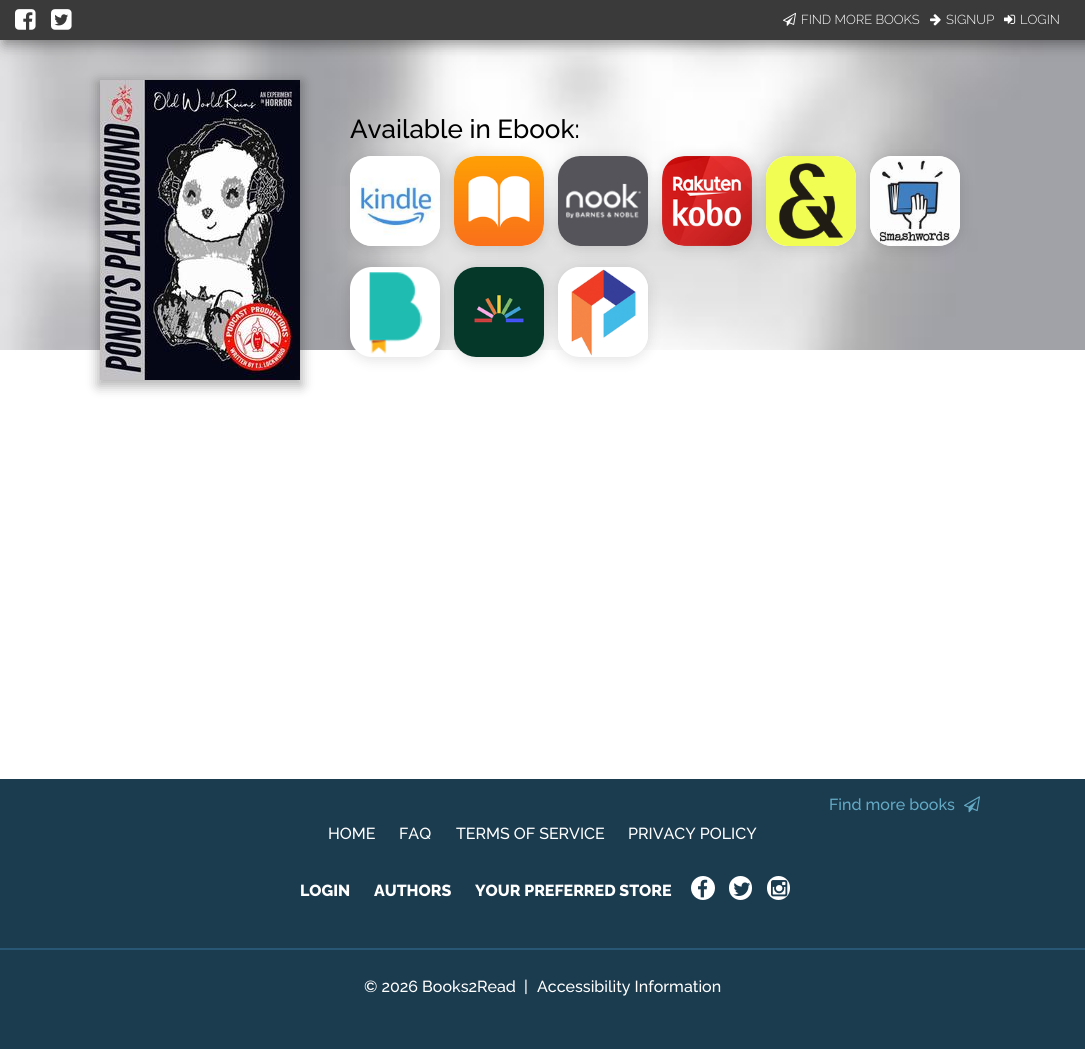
#include <cairo.h>
#include <math.h>
#include <stddef.h>


static void round_rect(cairo_t *cr, double x, double y, double w, double h, double r) {
    cairo_new_sub_path(cr);
    cairo_arc(cr, x + w - r, y + h - r, r, 0, M_PI / 2);
    cairo_arc(cr, x + r, y + h - r, r, M_PI / 2, M_PI);
    cairo_arc(cr, x + r, y + r, r, M_PI, 1.5 * M_PI);
    cairo_arc(cr, x + w - r, y + r, r, 1.5 * M_PI, 2 * M_PI);
    cairo_close_path(cr);
}

static void shadow(cairo_t *cr, double x, double y, double w, double h, double r, double blur, double alpha) {
    cairo_push_group_with_content(cr, CAIRO_CONTENT_ALPHA);
    cairo_set_operator(cr, CAIRO_OPERATOR_SOURCE);
    for (int i = 15; i >= -15 && fmin(w, h) + blur * i / 3 > 0; i -= 2) {
        double e = blur * i / 6;
        cairo_set_source_rgba(cr, 0, 0, 0, alpha * erfc((i - 1) / 8.5) / 2);
        round_rect(cr, x - e, y - e, w + 2 * e, h + 2 * e, fmax(0, fmin(r + e + blur * .6, fmin(w, h) / 2 + e)));
        cairo_fill(cr);
    }
    cairo_pattern_t *soft = cairo_pop_group(cr);
    cairo_mask(cr, soft);
    cairo_pattern_destroy(soft);
}

static void picture(cairo_t *cr, const char *path, double x, double y, double w, double h) {
    cairo_surface_t *image = cairo_image_surface_create_from_png(path);
    cairo_save(cr);
    cairo_set_source_surface(cr, image, x, y);
    cairo_rectangle(cr, x, y, w, h);
    cairo_fill(cr);
    cairo_restore(cr);
    cairo_surface_destroy(image);
}

int main(void) {
    cairo_surface_t *surface = cairo_image_surface_create(CAIRO_FORMAT_RGB24, 1085, 1049);
    cairo_t *cr = cairo_create(surface);
    cairo_font_options_t *options = cairo_font_options_create();
    cairo_font_options_set_hint_metrics(options, CAIRO_HINT_METRICS_OFF);
    cairo_font_options_set_hint_style(options, CAIRO_HINT_STYLE_NONE);
    cairo_set_font_options(cr, options);
    cairo_set_miter_limit(cr, 4);
    cairo_set_source_rgb(cr, 1, 1, 1);
    cairo_paint(cr);
    picture(cr, "img1.png", 0, 40, 1085, 310);
    cairo_set_source_rgb(cr, 0, 0, 0);
    shadow(cr, 4, 4, 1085, 40, 0, 7, 0.4);
    cairo_set_source_rgb(cr, 0.227, 0.227, 0.227);
    cairo_rectangle(cr, 0, 0, 1085, 40);
    cairo_fill(cr);
    picture(cr, "img2.png", 15, 9, 21, 21);
    picture(cr, "img3.png", 51, 9, 21, 21);
    picture(cr, "img4.png", 783, 12, 13, 14);
    cairo_select_font_face(cr, "Raleway Light", CAIRO_FONT_SLANT_NORMAL, CAIRO_FONT_WEIGHT_NORMAL);
    cairo_set_font_size(cr, 13);
    cairo_set_source_rgb(cr, 1, 1, 1);
    cairo_move_to(cr, 801, 24);
    cairo_show_text(cr, "FIND MORE BOOKS");
    picture(cr, "img5.png", 930, 14, 11, 12);
    cairo_move_to(cr, 946, 24);
    cairo_show_text(cr, "SIGNUP");
    picture(cr, "img6.png", 1004, 14, 12, 10);
    cairo_move_to(cr, 1020, 24);
    cairo_show_text(cr, "LOGIN");
    cairo_set_source_rgb(cr, 0, 0, 0);
    shadow(cr, 98, 82, 204, 304, 0, 6, 0.3);
    picture(cr, "img7.png", 100, 80, 200, 300);
    shadow(cr, 348, 156, 94, 94, 24, 6, 0.1);
    cairo_set_source_rgb(cr, 1, 1, 1);
    round_rect(cr, 350, 156, 90, 90, 22);
    cairo_fill(cr);
    picture(cr, "img8.png", 350, 156, 90, 90);
    cairo_set_source_rgb(cr, 0, 0, 0);
    shadow(cr, 452, 156, 94, 94, 24, 6, 0.1);
    cairo_set_source_rgb(cr, 1, 1, 1);
    round_rect(cr, 454, 156, 90, 90, 22);
    cairo_fill(cr);
    picture(cr, "img9.png", 454, 156, 90, 90);
    cairo_set_source_rgb(cr, 0, 0, 0);
    shadow(cr, 556, 156, 94, 94, 24, 6, 0.1);
    cairo_select_font_face(cr, "Raleway Medium", CAIRO_FONT_SLANT_NORMAL, CAIRO_FONT_WEIGHT_NORMAL);
    cairo_set_font_size(cr, 26);
    cairo_set_source_rgb(cr, 0, 0, 0);
    cairo_move_to(cr, 350, 138);
    cairo_show_text(cr, "Available in Ebook:");
    cairo_set_source_rgb(cr, 1, 1, 1);
    round_rect(cr, 558, 156, 90, 90, 22);
    cairo_fill(cr);
    picture(cr, "img10.png", 558, 156, 90, 90);
    cairo_set_source_rgb(cr, 0, 0, 0);
    shadow(cr, 660, 156, 94, 94, 24, 6, 0.1);
    cairo_set_source_rgb(cr, 1, 1, 1);
    round_rect(cr, 662, 156, 90, 90, 22);
    cairo_fill(cr);
    picture(cr, "img11.png", 662, 156, 90, 90);
    cairo_set_source_rgb(cr, 0, 0, 0);
    shadow(cr, 764, 156, 94, 94, 24, 6, 0.1);
    cairo_set_source_rgb(cr, 1, 1, 1);
    round_rect(cr, 766, 156, 90, 90, 22);
    cairo_fill(cr);
    picture(cr, "img12.png", 766, 156, 90, 90);
    cairo_set_source_rgb(cr, 0, 0, 0);
    shadow(cr, 868, 156, 94, 94, 24, 6, 0.1);
    cairo_set_source_rgb(cr, 1, 1, 1);
    round_rect(cr, 870, 156, 90, 90, 22);
    cairo_fill(cr);
    picture(cr, "img13.png", 870, 156, 90, 90);
    cairo_set_source_rgb(cr, 0, 0, 0);
    shadow(cr, 348, 267, 94, 94, 24, 6, 0.1);
    cairo_set_source_rgb(cr, 1, 1, 1);
    round_rect(cr, 350, 267, 90, 90, 22);
    cairo_fill(cr);
    cairo_set_source_rgb(cr, 0, 0, 0);
    shadow(cr, 452, 267, 94, 94, 24, 6, 0.1);
    cairo_set_source_rgb(cr, 1, 1, 1);
    round_rect(cr, 454, 267, 90, 90, 22);
    cairo_fill(cr);
    picture(cr, "img14.png", 454, 267, 90, 90);
    cairo_set_source_rgb(cr, 0, 0, 0);
    shadow(cr, 556, 267, 94, 94, 24, 6, 0.1);
    cairo_set_source_rgb(cr, 1, 1, 1);
    round_rect(cr, 558, 267, 90, 90, 22);
    cairo_fill(cr);
    picture(cr, "img15.png", 369, 272, 54, 82);
    picture(cr, "img16.png", 558, 267, 90, 89);
    cairo_set_source_rgb(cr, 0.106, 0.231, 0.31);
    cairo_rectangle(cr, 0, 779, 1085, 270);
    cairo_fill(cr);
    cairo_set_font_size(cr, 16);
    cairo_set_source_rgb(cr, 0.388, 0.667, 0.773);
    cairo_move_to(cr, 829, 810);
    cairo_show_text(cr, "Find more books");
    picture(cr, "img17.png", 964, 796, 16, 17);
    cairo_set_source_rgb(cr, 1, 1, 1);
    cairo_move_to(cr, 328, 839);
    cairo_show_text(cr, "HOME");
    cairo_move_to(cr, 399, 839);
    cairo_show_text(cr, "FAQ");
    cairo_move_to(cr, 456, 839);
    cairo_show_text(cr, "TERMS OF SERVICE");
    cairo_move_to(cr, 628, 839);
    cairo_show_text(cr, "PRIVACY POLICY");
    cairo_select_font_face(cr, "Raleway ExtraBold", CAIRO_FONT_SLANT_NORMAL, CAIRO_FONT_WEIGHT_NORMAL);
    cairo_move_to(cr, 300, 896);
    cairo_show_text(cr, "LOGIN");
    cairo_move_to(cr, 374, 896);
    cairo_show_text(cr, "AUTHORS");
    cairo_move_to(cr, 475, 896);
    cairo_show_text(cr, "YOUR PREFERRED STORE");
    cairo_new_path(cr);
    cairo_arc(cr, 703, 888, 12, 0, 2 * M_PI);
    cairo_fill(cr);
    picture(cr, "img18.png", 698, 879, 10, 19);
    round_rect(cr, 729, 876, 23, 24, 11.5);
    cairo_fill(cr);
    picture(cr, "img19.png", 733, 882, 17, 14);
    round_rect(cr, 767, 876, 23, 24, 11.5);
    cairo_fill(cr);
    picture(cr, "img20.png", 771, 880, 17, 17);
    cairo_set_source_rgb(cr, 0.157, 0.341, 0.459);
    cairo_rectangle(cr, 0, 948, 1085, 2);
    cairo_fill(cr);
    cairo_select_font_face(cr, "Raleway Medium", CAIRO_FONT_SLANT_NORMAL, CAIRO_FONT_WEIGHT_NORMAL);
    cairo_set_source_rgb(cr, 1, 1, 1);
    cairo_move_to(cr, 364, 992);
    cairo_show_text(cr, "© 2026 Books2Read");
    cairo_move_to(cr, 524, 992);
    cairo_show_text(cr, "|");
    cairo_move_to(cr, 537, 992);
    cairo_show_text(cr, "Accessibility Information");
    cairo_surface_write_to_png(surface, "page.png");
    cairo_font_options_destroy(options);
    cairo_destroy(cr);
    cairo_surface_destroy(surface);
    return 0;
}
